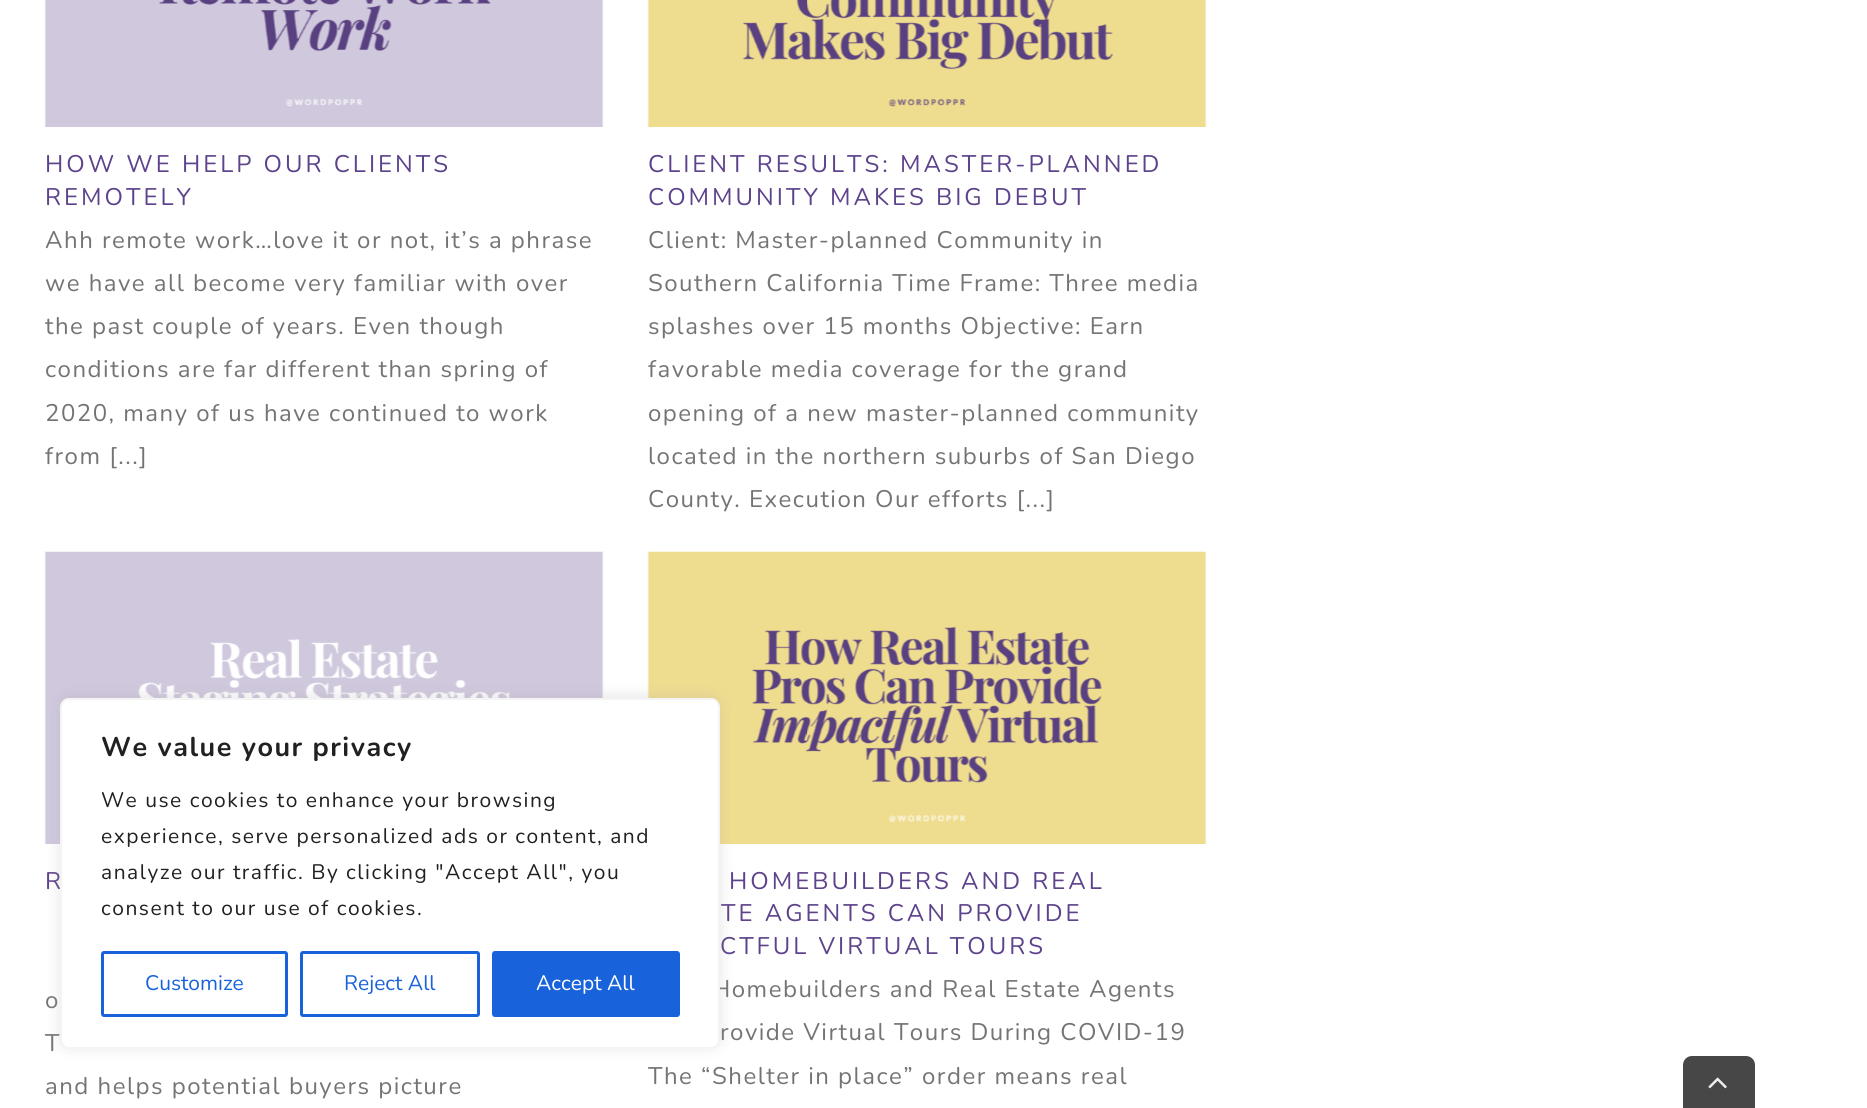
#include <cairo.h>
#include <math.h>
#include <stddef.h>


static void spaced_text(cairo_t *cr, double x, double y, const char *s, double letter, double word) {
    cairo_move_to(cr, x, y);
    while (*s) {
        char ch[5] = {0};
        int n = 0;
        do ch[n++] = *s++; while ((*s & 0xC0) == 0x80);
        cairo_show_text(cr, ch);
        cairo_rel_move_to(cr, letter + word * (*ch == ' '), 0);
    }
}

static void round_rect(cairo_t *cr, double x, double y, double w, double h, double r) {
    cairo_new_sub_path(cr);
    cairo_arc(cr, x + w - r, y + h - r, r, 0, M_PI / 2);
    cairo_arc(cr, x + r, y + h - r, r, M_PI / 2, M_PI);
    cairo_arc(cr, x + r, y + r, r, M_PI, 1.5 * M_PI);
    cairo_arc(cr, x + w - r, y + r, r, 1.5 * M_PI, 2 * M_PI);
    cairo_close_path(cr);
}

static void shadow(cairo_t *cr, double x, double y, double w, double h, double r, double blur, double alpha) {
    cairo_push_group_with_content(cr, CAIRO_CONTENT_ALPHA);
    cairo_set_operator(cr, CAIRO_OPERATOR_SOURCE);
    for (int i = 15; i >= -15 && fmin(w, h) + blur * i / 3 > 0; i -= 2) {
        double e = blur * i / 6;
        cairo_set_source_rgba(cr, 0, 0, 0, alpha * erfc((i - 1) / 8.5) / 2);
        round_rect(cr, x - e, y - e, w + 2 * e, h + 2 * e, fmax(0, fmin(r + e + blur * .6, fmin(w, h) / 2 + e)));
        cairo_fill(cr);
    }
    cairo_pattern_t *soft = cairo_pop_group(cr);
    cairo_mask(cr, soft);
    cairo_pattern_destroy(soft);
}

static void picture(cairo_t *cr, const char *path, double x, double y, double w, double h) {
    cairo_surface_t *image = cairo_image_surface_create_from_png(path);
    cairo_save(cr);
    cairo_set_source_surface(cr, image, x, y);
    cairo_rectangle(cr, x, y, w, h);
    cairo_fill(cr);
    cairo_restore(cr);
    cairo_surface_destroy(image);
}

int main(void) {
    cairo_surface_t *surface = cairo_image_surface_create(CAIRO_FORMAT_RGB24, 1867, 1108);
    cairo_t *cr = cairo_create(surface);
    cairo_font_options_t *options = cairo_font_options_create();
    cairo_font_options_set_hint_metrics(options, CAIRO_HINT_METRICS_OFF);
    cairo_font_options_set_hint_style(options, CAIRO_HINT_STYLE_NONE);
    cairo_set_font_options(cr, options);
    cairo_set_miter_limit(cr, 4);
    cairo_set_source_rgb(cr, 1, 1, 1);
    cairo_paint(cr);
    picture(cr, "img1.png", 44, 0, 560, 127);
    cairo_select_font_face(cr, "Nunito", CAIRO_FONT_SLANT_NORMAL, CAIRO_FONT_WEIGHT_NORMAL);
    cairo_set_font_size(cr, 24);
    cairo_set_source_rgb(cr, 0.365, 0.263, 0.549);
    spaced_text(cr, 45, 172, "HOW WE HELP OUR CLIENTS", 3, 0);
    spaced_text(cr, 45, 205, "REMOTELY", 3, 0);
    cairo_set_source_rgb(cr, 0.455, 0.455, 0.455);
    spaced_text(cr, 45, 248, "Ahh remote work…love it or not, it’s a phrase", 1.5, 0);
    spaced_text(cr, 45, 291, "we have all become very familiar with over", 1.5, 0);
    spaced_text(cr, 45, 334, "the past couple of years. Even though", 1.5, 0);
    spaced_text(cr, 45, 377, "conditions are far different than spring of", 1.5, 0);
    spaced_text(cr, 45, 421, "2020, many of us have continued to work", 1.5, 0);
    spaced_text(cr, 45, 464, "from [...]", 1.5, 0);
    picture(cr, "img2.png", 647, 0, 560, 127);
    cairo_set_source_rgb(cr, 0.365, 0.263, 0.549);
    spaced_text(cr, 648, 172, "CLIENT RESULTS: MASTER-PLANNED", 3, 0);
    spaced_text(cr, 648, 205, "COMMUNITY MAKES BIG DEBUT", 3, 0);
    cairo_set_source_rgb(cr, 0.455, 0.455, 0.455);
    spaced_text(cr, 648, 248, "Client: Master-planned Community in", 1.5, 0);
    spaced_text(cr, 648, 291, "Southern California Time Frame: Three media", 1.5, 0);
    spaced_text(cr, 648, 334, "splashes over 15 months Objective: Earn", 1.5, 0);
    spaced_text(cr, 648, 377, "favorable media coverage for the grand", 1.5, 0);
    spaced_text(cr, 648, 421, "opening of a new master-planned community", 1.5, 0);
    spaced_text(cr, 648, 464, "located in the northern suburbs of San Diego", 1.5, 0);
    spaced_text(cr, 648, 507, "County. Execution Our efforts [...]", 1.5, 0);
    picture(cr, "img3.png", 44, 551, 560, 293);
    cairo_set_source_rgb(cr, 0.365, 0.263, 0.549);
    spaced_text(cr, 45, 889, "R", 3, 0);
    cairo_set_source_rgb(cr, 0.455, 0.455, 0.455);
    spaced_text(cr, 45, 1008, "o", 1.5, 0);
    spaced_text(cr, 45, 1051, "T", 1.5, 0);
    spaced_text(cr, 45, 1094, "and helps potential buyers picture", 1.5, 0);
    picture(cr, "img4.png", 647, 551, 560, 293);
    cairo_set_source_rgb(cr, 0.365, 0.263, 0.549);
    spaced_text(cr, 729, 889, "HOMEBUILDERS AND REAL", 3, 0);
    spaced_text(cr, 721, 921, "TE AGENTS CAN PROVIDE", 3, 0);
    spaced_text(cr, 720, 954, "CTFUL VIRTUAL TOURS", 3, 0);
    cairo_set_source_rgb(cr, 0.455, 0.455, 0.455);
    spaced_text(cr, 712, 997, "Homebuilders and Real Estate Agents", 1.5, 0);
    spaced_text(cr, 720, 1040, "rovide Virtual Tours During COVID-19", 1.5, 0);
    spaced_text(cr, 648, 1084, "The “Shelter in place” order means real", 1.5, 0);
    cairo_set_source_rgb(cr, 0.675, 0.671, 0.671);
    shadow(cr, 60, 696, 660, 351, 9, 7.5, 0.3);
    cairo_set_source_rgb(cr, 1, 1, 1);
    round_rect(cr, 61, 699, 658, 349, 8);
    cairo_fill_preserve(cr);
    cairo_set_source_rgb(cr, 0.957, 0.957, 0.957);
    cairo_stroke(cr);
    cairo_select_font_face(cr, "Nunito", CAIRO_FONT_SLANT_NORMAL, CAIRO_FONT_WEIGHT_BOLD);
    cairo_set_font_size(cr, 27);
    cairo_set_source_rgb(cr, 0.129, 0.129, 0.129);
    spaced_text(cr, 101, 756, "We value your privacy", 1.5, 0);
    cairo_select_font_face(cr, "Nunito", CAIRO_FONT_SLANT_NORMAL, CAIRO_FONT_WEIGHT_NORMAL);
    cairo_set_font_size(cr, 21);
    spaced_text(cr, 101, 807, "We use cookies to enhance your browsing", 1.5, 0);
    spaced_text(cr, 101, 843, "experience, serve personalized ads or content, and", 1.5, 0);
    spaced_text(cr, 101, 879, "analyze our traffic. By clicking \"Accept All\", you", 1.5, 0);
    spaced_text(cr, 101, 915, "consent to our use of cookies.", 1.5, 0);
    round_rect(cr, 102.5, 952.5, 184, 63, 1.5);
    cairo_set_source_rgb(cr, 0.094, 0.388, 0.863);
    cairo_set_line_width(cr, 3);
    cairo_stroke(cr);
    cairo_move_to(cr, 145, 990);
    cairo_show_text(cr, "Customize");
    round_rect(cr, 301.5, 952.5, 177, 63, 1.5);
    cairo_stroke(cr);
    cairo_move_to(cr, 344, 990);
    cairo_show_text(cr, "Reject All");
    round_rect(cr, 493.5, 952.5, 185, 63, 1.5);
    cairo_fill_preserve(cr);
    cairo_stroke(cr);
    cairo_set_source_rgb(cr, 1, 1, 1);
    cairo_move_to(cr, 536, 990);
    cairo_show_text(cr, "Accept All");
    cairo_set_source_rgb(cr, 0.278, 0.278, 0.278);
    cairo_new_path(cr);
    cairo_move_to(cr, 1692, 1056);
    cairo_line_to(cr, 1746, 1056);
    cairo_curve_to(cr, 1751, 1056, 1755, 1060, 1755, 1065);
    cairo_line_to(cr, 1755, 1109);
    cairo_line_to(cr, 1683, 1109);
    cairo_line_to(cr, 1683, 1065);
    cairo_curve_to(cr, 1683, 1060, 1687, 1056, 1692, 1056);
    cairo_close_path(cr);
    cairo_fill(cr);
    picture(cr, "img5.png", 1708, 1077, 19, 12);
    cairo_surface_write_to_png(surface, "page.png");
    cairo_font_options_destroy(options);
    cairo_destroy(cr);
    cairo_surface_destroy(surface);
    return 0;
}
